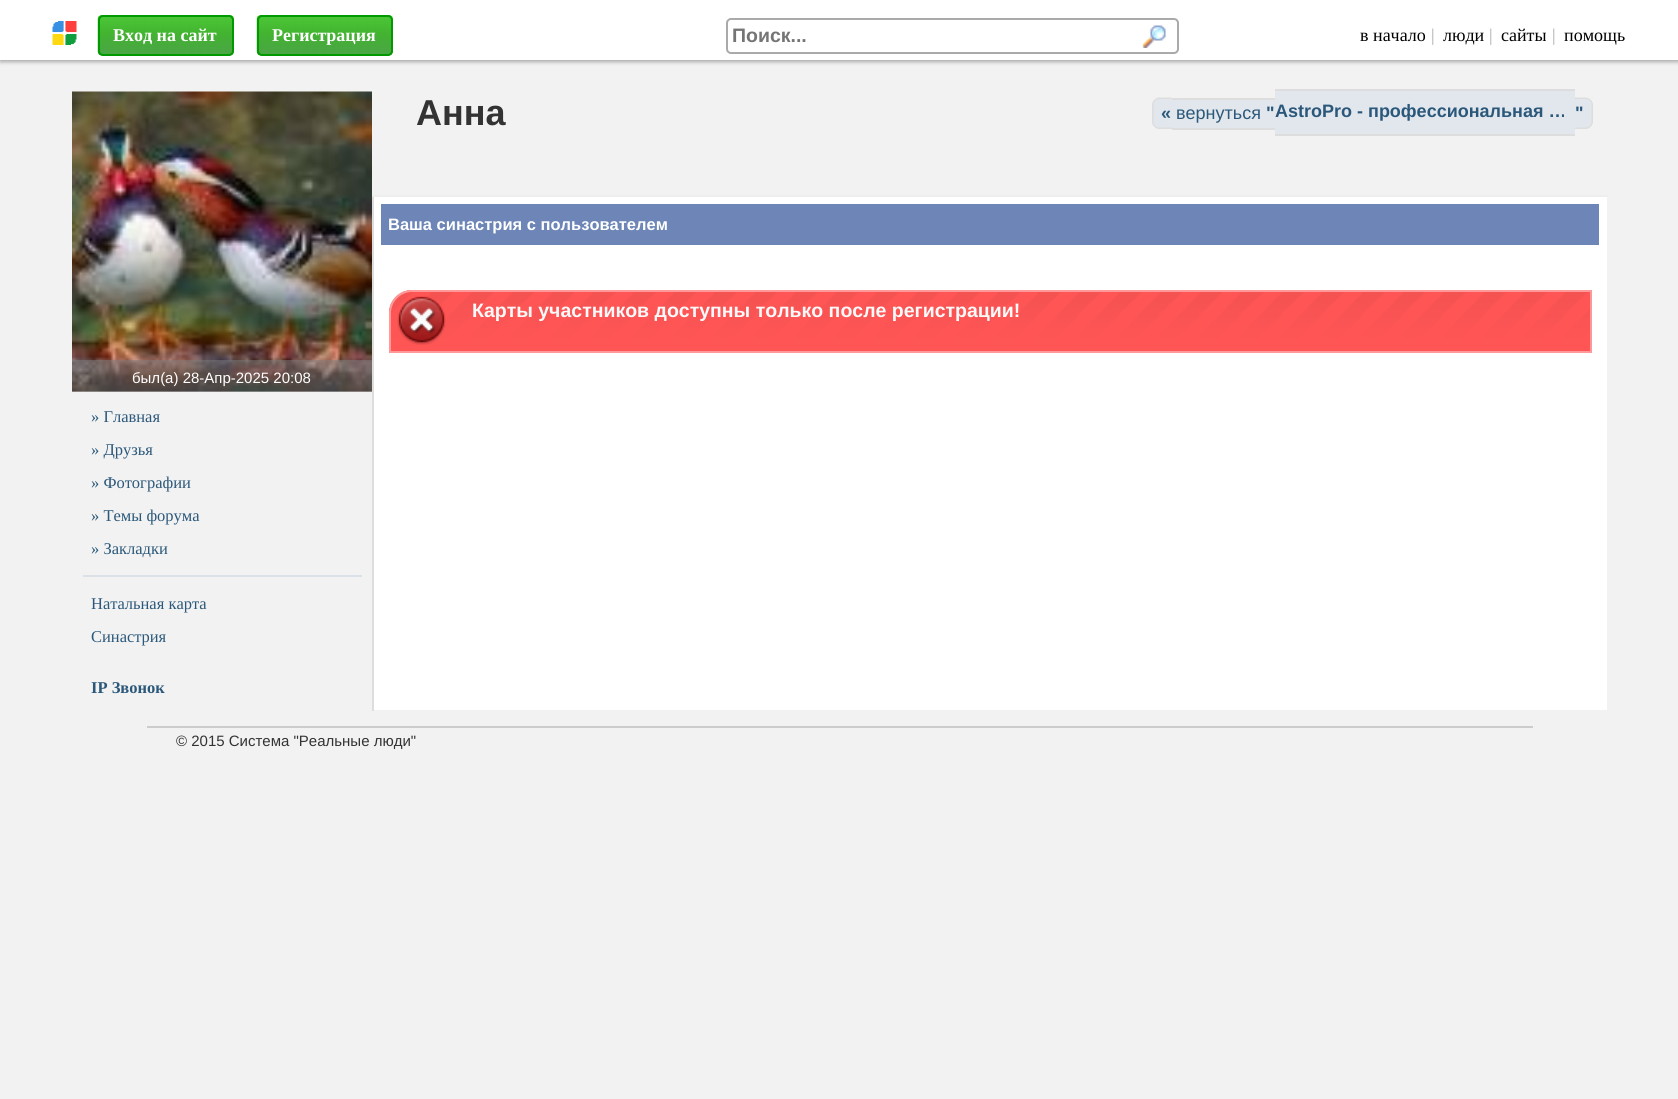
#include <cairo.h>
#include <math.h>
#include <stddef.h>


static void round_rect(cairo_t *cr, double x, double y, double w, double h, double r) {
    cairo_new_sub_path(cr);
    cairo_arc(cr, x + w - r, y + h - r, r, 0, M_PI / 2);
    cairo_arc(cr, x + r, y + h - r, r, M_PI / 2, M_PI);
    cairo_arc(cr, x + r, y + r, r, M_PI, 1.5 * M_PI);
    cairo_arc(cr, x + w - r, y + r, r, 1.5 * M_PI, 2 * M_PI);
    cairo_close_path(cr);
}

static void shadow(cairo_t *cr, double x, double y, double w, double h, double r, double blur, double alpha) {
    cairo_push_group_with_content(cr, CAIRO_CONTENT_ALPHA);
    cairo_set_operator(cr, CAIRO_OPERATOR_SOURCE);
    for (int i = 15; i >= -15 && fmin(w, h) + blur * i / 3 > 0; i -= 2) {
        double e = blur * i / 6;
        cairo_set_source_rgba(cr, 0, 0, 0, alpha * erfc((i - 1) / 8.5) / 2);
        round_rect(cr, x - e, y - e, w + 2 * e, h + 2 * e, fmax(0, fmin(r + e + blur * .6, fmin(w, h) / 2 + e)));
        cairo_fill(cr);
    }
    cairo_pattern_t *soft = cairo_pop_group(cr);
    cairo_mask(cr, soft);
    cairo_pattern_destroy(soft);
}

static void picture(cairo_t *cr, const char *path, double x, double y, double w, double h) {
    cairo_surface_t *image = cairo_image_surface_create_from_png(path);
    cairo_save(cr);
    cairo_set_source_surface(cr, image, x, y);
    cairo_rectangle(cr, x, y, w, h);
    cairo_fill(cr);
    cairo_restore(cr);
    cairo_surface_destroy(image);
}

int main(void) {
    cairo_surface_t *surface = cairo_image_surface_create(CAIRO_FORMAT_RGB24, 1678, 1099);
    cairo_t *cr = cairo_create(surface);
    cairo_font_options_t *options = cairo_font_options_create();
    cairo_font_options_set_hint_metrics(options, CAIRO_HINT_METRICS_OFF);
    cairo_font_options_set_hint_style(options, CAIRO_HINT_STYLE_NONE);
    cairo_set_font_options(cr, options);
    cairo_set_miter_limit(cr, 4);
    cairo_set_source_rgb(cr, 0.949, 0.949, 0.949);
    cairo_paint(cr);
    cairo_set_source_rgb(cr, 0.667, 0.667, 0.667);
    shadow(cr, 0, 2, 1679, 60, 0, 2, 1);
    cairo_set_source_rgb(cr, 1, 1, 1);
    cairo_rectangle(cr, 0, 0, 1678, 60);
    cairo_fill(cr);
    picture(cr, "img1.png", 52, 21, 25, 24);
    picture(cr, "img2.png", 97, 15, 137, 41);
    round_rect(cr, 99, 16, 134, 39, 4);
    cairo_set_source_rgb(cr, 0, 0.6, 0);
    cairo_stroke(cr);
    cairo_select_font_face(cr, "Liberation Serif", CAIRO_FONT_SLANT_NORMAL, CAIRO_FONT_WEIGHT_BOLD);
    cairo_set_font_size(cr, 18);
    cairo_set_source_rgb(cr, 1, 1, 1);
    cairo_move_to(cr, 113, 41);
    cairo_show_text(cr, "Вход на сайт");
    picture(cr, "img3.png", 256, 15, 137, 41);
    round_rect(cr, 258, 16, 134, 39, 4);
    cairo_set_source_rgb(cr, 0, 0.6, 0);
    cairo_stroke(cr);
    cairo_set_source_rgb(cr, 1, 1, 1);
    cairo_move_to(cr, 272, 41);
    cairo_show_text(cr, "Регистрация");
    round_rect(cr, 727, 19, 451, 34, 4);
    cairo_set_source_rgb(cr, 0.667, 0.667, 0.667);
    cairo_stroke(cr);
    cairo_select_font_face(cr, "Liberation Sans", CAIRO_FONT_SLANT_NORMAL, CAIRO_FONT_WEIGHT_BOLD);
    cairo_set_font_size(cr, 19.5);
    cairo_set_source_rgb(cr, 0.459, 0.459, 0.459);
    cairo_move_to(cr, 732, 42);
    cairo_show_text(cr, "Поиск...");
    picture(cr, "img4.png", 1142, 25, 24, 23);
    cairo_select_font_face(cr, "Liberation Serif", CAIRO_FONT_SLANT_NORMAL, CAIRO_FONT_WEIGHT_NORMAL);
    cairo_set_font_size(cr, 18);
    cairo_set_source_rgb(cr, 0, 0, 0);
    cairo_move_to(cr, 1360, 41);
    cairo_show_text(cr, "в начало");
    cairo_set_source_rgb(cr, 0.667, 0.667, 0.667);
    cairo_move_to(cr, 1431, 41);
    cairo_show_text(cr, "|");
    cairo_set_source_rgb(cr, 0, 0, 0);
    cairo_move_to(cr, 1443, 41);
    cairo_show_text(cr, "люди");
    cairo_set_source_rgb(cr, 0.667, 0.667, 0.667);
    cairo_move_to(cr, 1489, 41);
    cairo_show_text(cr, "|");
    cairo_set_source_rgb(cr, 0, 0, 0);
    cairo_move_to(cr, 1501, 41);
    cairo_show_text(cr, "сайты");
    cairo_set_source_rgb(cr, 0.667, 0.667, 0.667);
    cairo_move_to(cr, 1552, 41);
    cairo_show_text(cr, "|");
    cairo_set_source_rgb(cr, 0, 0, 0);
    cairo_move_to(cr, 1564, 41);
    cairo_show_text(cr, "помощь");
    cairo_select_font_face(cr, "Liberation Sans", CAIRO_FONT_SLANT_NORMAL, CAIRO_FONT_WEIGHT_BOLD);
    cairo_set_font_size(cr, 36);
    cairo_set_source_rgb(cr, 0.2, 0.2, 0.2);
    cairo_move_to(cr, 416, 125);
    cairo_show_text(cr, "Анна");
    cairo_set_source_rgb(cr, 0.882, 0.906, 0.929);
    cairo_new_path(cr);
    cairo_move_to(cr, 1160, 98);
    cairo_line_to(cr, 1172, 98);
    cairo_line_to(cr, 1172, 129);
    cairo_line_to(cr, 1160, 129);
    cairo_curve_to(cr, 1155.5, 129, 1152, 125.5, 1152, 121);
    cairo_line_to(cr, 1152, 106);
    cairo_curve_to(cr, 1152, 101.5, 1155.5, 98, 1160, 98);
    cairo_close_path(cr);
    cairo_fill(cr);
    cairo_set_source_rgb(cr, 0.867, 0.867, 0.867);
    cairo_set_fill_rule(cr, CAIRO_FILL_RULE_EVEN_ODD);
    cairo_new_path(cr);
    cairo_move_to(cr, 1159.5, 97.5);
    cairo_line_to(cr, 1171.5, 97.5);
    cairo_line_to(cr, 1171.5, 129);
    cairo_line_to(cr, 1159.5, 129);
    cairo_curve_to(cr, 1155.5, 129, 1152, 125.5, 1152, 121.5);
    cairo_line_to(cr, 1152, 105);
    cairo_curve_to(cr, 1152, 101, 1155.5, 97.5, 1159.5, 97.5);
    cairo_close_path(cr);
    cairo_move_to(cr, 1159.5, 99);
    cairo_line_to(cr, 1171.5, 99);
    cairo_line_to(cr, 1171.5, 127.5);
    cairo_line_to(cr, 1159.5, 127.5);
    cairo_curve_to(cr, 1156, 127.5, 1153.5, 125, 1153.5, 121.5);
    cairo_line_to(cr, 1153.5, 105);
    cairo_curve_to(cr, 1153.5, 101.5, 1156, 99, 1159.5, 99);
    cairo_close_path(cr);
    cairo_fill(cr);
    cairo_set_source_rgb(cr, 0.882, 0.906, 0.929);
    cairo_rectangle(cr, 1172, 100, 103, 28);
    cairo_fill(cr);
    cairo_set_source_rgb(cr, 0.867, 0.867, 0.867);
    cairo_rectangle(cr, 1172, 98, 103, 2);
    cairo_fill(cr);
    cairo_rectangle(cr, 1172, 128, 103, 2);
    cairo_fill(cr);
    cairo_set_source_rgb(cr, 0.882, 0.906, 0.929);
    cairo_rectangle(cr, 1275, 91, 300, 43);
    cairo_fill(cr);
    cairo_set_source_rgb(cr, 0.867, 0.867, 0.867);
    cairo_rectangle(cr, 1275, 89, 300, 2);
    cairo_fill(cr);
    cairo_rectangle(cr, 1275, 134, 300, 2);
    cairo_fill(cr);
    cairo_set_source_rgb(cr, 0.882, 0.906, 0.929);
    cairo_new_path(cr);
    cairo_move_to(cr, 1575, 98);
    cairo_line_to(cr, 1585, 98);
    cairo_curve_to(cr, 1589.5, 98, 1593, 101.5, 1593, 106);
    cairo_line_to(cr, 1593, 121);
    cairo_curve_to(cr, 1593, 125.5, 1589.5, 129, 1585, 129);
    cairo_line_to(cr, 1575, 129);
    cairo_close_path(cr);
    cairo_fill(cr);
    cairo_set_source_rgb(cr, 0.867, 0.867, 0.867);
    cairo_new_path(cr);
    cairo_move_to(cr, 1575, 97.5);
    cairo_line_to(cr, 1585.5, 97.5);
    cairo_curve_to(cr, 1589.5, 97.5, 1593, 101, 1593, 105);
    cairo_line_to(cr, 1593, 121.5);
    cairo_curve_to(cr, 1593, 125.5, 1589.5, 129, 1585.5, 129);
    cairo_line_to(cr, 1575, 129);
    cairo_close_path(cr);
    cairo_move_to(cr, 1575, 99);
    cairo_line_to(cr, 1585.5, 99);
    cairo_curve_to(cr, 1589, 99, 1591.5, 101.5, 1591.5, 105);
    cairo_line_to(cr, 1591.5, 121.5);
    cairo_curve_to(cr, 1591.5, 125, 1589, 127.5, 1585.5, 127.5);
    cairo_line_to(cr, 1575, 127.5);
    cairo_close_path(cr);
    cairo_fill(cr);
    cairo_set_font_size(cr, 18);
    cairo_set_source_rgb(cr, 0.169, 0.345, 0.478);
    cairo_move_to(cr, 1161, 119);
    cairo_show_text(cr, "«");
    cairo_select_font_face(cr, "Liberation Sans", CAIRO_FONT_SLANT_NORMAL, CAIRO_FONT_WEIGHT_NORMAL);
    cairo_move_to(cr, 1176, 119);
    cairo_show_text(cr, "вернуться");
    cairo_select_font_face(cr, "Liberation Sans", CAIRO_FONT_SLANT_NORMAL, CAIRO_FONT_WEIGHT_BOLD);
    cairo_move_to(cr, 1266, 119);
    cairo_show_text(cr, "\"");
    cairo_move_to(cr, 1275, 117);
    cairo_show_text(cr, "AstroPro - профессиональная …");
    cairo_move_to(cr, 1575, 119);
    cairo_show_text(cr, "\"");
    cairo_set_source_rgb(cr, 0.933, 0.933, 0.933);
    cairo_rectangle(cr, 372, 195, 1236, 2);
    cairo_fill(cr);
    cairo_set_source_rgb(cr, 1, 1, 1);
    cairo_rectangle(cr, 374, 197, 1233, 513);
    cairo_fill(cr);
    cairo_set_source_rgb(cr, 0.867, 0.867, 0.867);
    cairo_rectangle(cr, 372, 197, 2, 514);
    cairo_fill(cr);
    cairo_set_source_rgb(cr, 0.427, 0.525, 0.718);
    cairo_rectangle(cr, 381, 204, 1218, 41);
    cairo_fill(cr);
    cairo_set_font_size(cr, 16.5);
    cairo_set_source_rgb(cr, 1, 1, 1);
    cairo_move_to(cr, 388, 230);
    cairo_show_text(cr, "Ваша синастрия с пользователем");
    cairo_set_source_rgb(cr, 1, 0.333, 0.333);
    cairo_new_path(cr);
    cairo_move_to(cr, 412, 290);
    cairo_line_to(cr, 1592, 290);
    cairo_line_to(cr, 1592, 353);
    cairo_line_to(cr, 389, 353);
    cairo_line_to(cr, 389, 313);
    cairo_curve_to(cr, 389, 300.5, 399.5, 290, 412, 290);
    cairo_close_path(cr);
    cairo_fill(cr);
    picture(cr, "img5.png", 389, 291, 1201, 54);
    cairo_new_path(cr);
    cairo_move_to(cr, 412, 291);
    cairo_line_to(cr, 1591, 291);
    cairo_line_to(cr, 1591, 352);
    cairo_line_to(cr, 390, 352);
    cairo_line_to(cr, 390, 313);
    cairo_curve_to(cr, 390, 301, 400, 291, 412, 291);
    cairo_close_path(cr);
    cairo_set_source_rgb(cr, 1, 0.6, 0.6);
    cairo_stroke(cr);
    cairo_set_font_size(cr, 19.5);
    cairo_set_source_rgb(cr, 0.976, 0.976, 0.976);
    cairo_move_to(cr, 472, 317);
    cairo_show_text(cr, "Карты участников доступны только после регистрации!");
    picture(cr, "img6.png", 72, 91, 300, 301);
    cairo_set_source_rgba(cr, 0.502, 0.502, 0.502, 0.5);
    cairo_rectangle(cr, 72, 360, 300, 32);
    cairo_fill(cr);
    cairo_select_font_face(cr, "Liberation Sans", CAIRO_FONT_SLANT_NORMAL, CAIRO_FONT_WEIGHT_NORMAL);
    cairo_set_font_size(cr, 15);
    cairo_set_source_rgb(cr, 1, 1, 1);
    cairo_move_to(cr, 132, 383);
    cairo_show_text(cr, "был(а) 28-Апр-2025 20:08");
    cairo_select_font_face(cr, "Liberation Serif", CAIRO_FONT_SLANT_NORMAL, CAIRO_FONT_WEIGHT_NORMAL);
    cairo_set_font_size(cr, 16.5);
    cairo_set_source_rgb(cr, 0.169, 0.345, 0.478);
    cairo_move_to(cr, 91, 422);
    cairo_show_text(cr, "» Главная");
    cairo_move_to(cr, 91, 455);
    cairo_show_text(cr, "» Друзья");
    cairo_move_to(cr, 91, 488);
    cairo_show_text(cr, "» Фотографии");
    cairo_move_to(cr, 91, 521);
    cairo_show_text(cr, "» Темы форума");
    cairo_move_to(cr, 91, 554);
    cairo_show_text(cr, "» Закладки");
    cairo_set_source_rgb(cr, 0.855, 0.882, 0.91);
    cairo_rectangle(cr, 83, 575, 279, 2);
    cairo_fill(cr);
    cairo_set_source_rgb(cr, 0.169, 0.345, 0.478);
    cairo_move_to(cr, 91, 609);
    cairo_show_text(cr, "Натальная карта");
    cairo_move_to(cr, 91, 642);
    cairo_show_text(cr, "Синастрия");
    cairo_select_font_face(cr, "Liberation Serif", CAIRO_FONT_SLANT_NORMAL, CAIRO_FONT_WEIGHT_BOLD);
    cairo_move_to(cr, 91, 693);
    cairo_show_text(cr, "IP Звонок");
    cairo_set_source_rgb(cr, 0.8, 0.8, 0.8);
    cairo_rectangle(cr, 147, 726, 1386, 2);
    cairo_fill(cr);
    cairo_select_font_face(cr, "Liberation Sans", CAIRO_FONT_SLANT_NORMAL, CAIRO_FONT_WEIGHT_NORMAL);
    cairo_set_font_size(cr, 15);
    cairo_set_source_rgb(cr, 0.2, 0.2, 0.2);
    cairo_move_to(cr, 176, 746);
    cairo_show_text(cr, "© 2015 Система \"Реальные люди\"");
    cairo_surface_write_to_png(surface, "page.png");
    cairo_font_options_destroy(options);
    cairo_destroy(cr);
    cairo_surface_destroy(surface);
    return 0;
}
